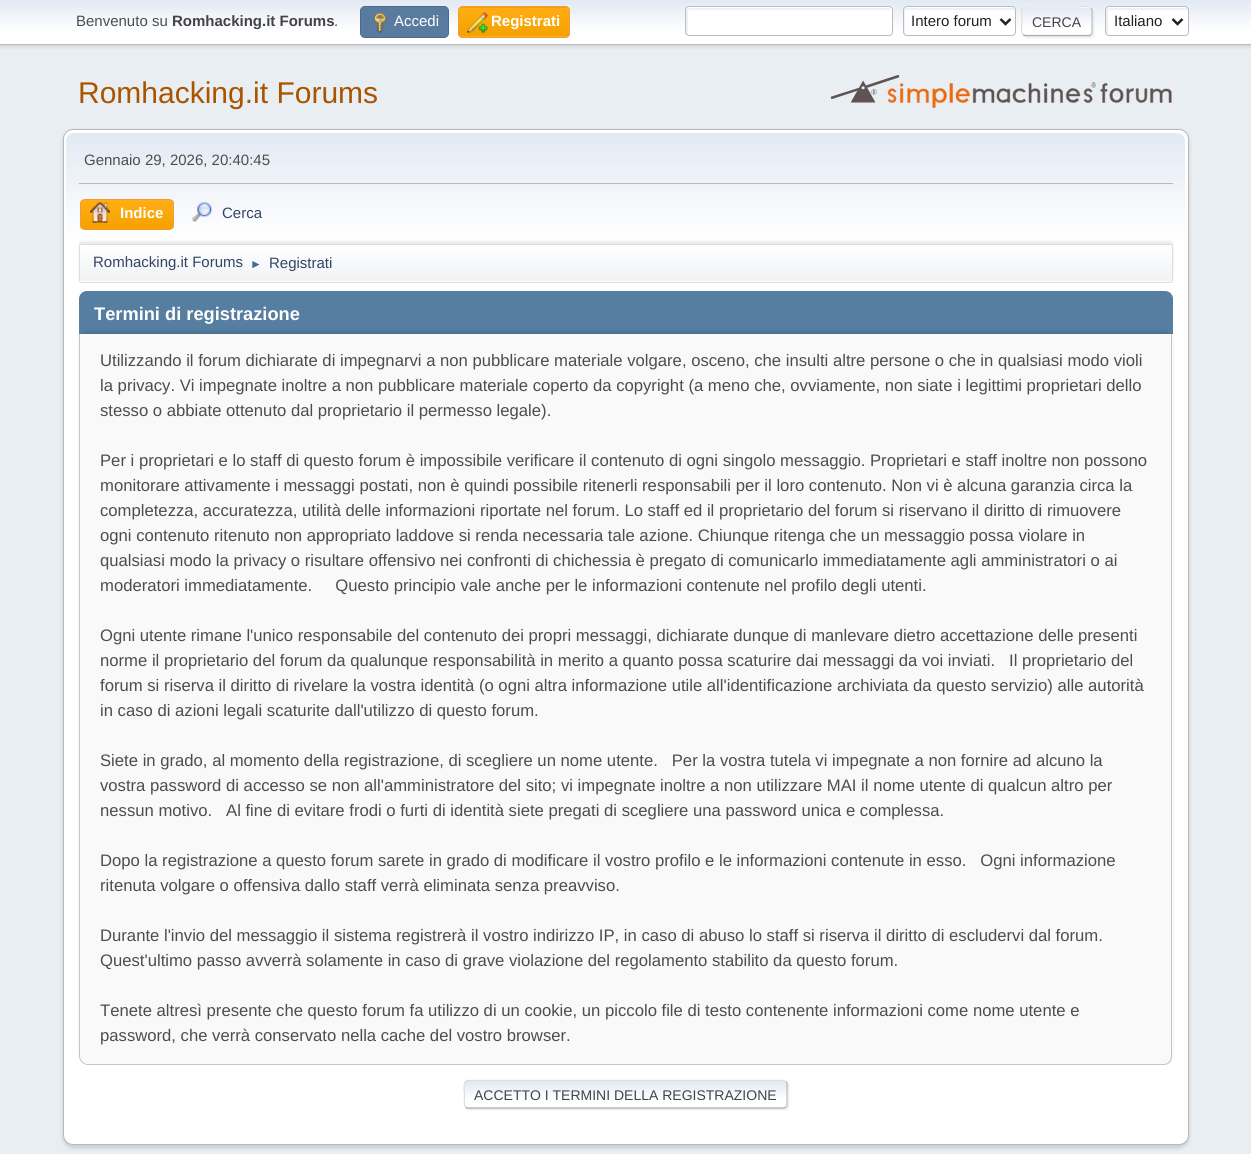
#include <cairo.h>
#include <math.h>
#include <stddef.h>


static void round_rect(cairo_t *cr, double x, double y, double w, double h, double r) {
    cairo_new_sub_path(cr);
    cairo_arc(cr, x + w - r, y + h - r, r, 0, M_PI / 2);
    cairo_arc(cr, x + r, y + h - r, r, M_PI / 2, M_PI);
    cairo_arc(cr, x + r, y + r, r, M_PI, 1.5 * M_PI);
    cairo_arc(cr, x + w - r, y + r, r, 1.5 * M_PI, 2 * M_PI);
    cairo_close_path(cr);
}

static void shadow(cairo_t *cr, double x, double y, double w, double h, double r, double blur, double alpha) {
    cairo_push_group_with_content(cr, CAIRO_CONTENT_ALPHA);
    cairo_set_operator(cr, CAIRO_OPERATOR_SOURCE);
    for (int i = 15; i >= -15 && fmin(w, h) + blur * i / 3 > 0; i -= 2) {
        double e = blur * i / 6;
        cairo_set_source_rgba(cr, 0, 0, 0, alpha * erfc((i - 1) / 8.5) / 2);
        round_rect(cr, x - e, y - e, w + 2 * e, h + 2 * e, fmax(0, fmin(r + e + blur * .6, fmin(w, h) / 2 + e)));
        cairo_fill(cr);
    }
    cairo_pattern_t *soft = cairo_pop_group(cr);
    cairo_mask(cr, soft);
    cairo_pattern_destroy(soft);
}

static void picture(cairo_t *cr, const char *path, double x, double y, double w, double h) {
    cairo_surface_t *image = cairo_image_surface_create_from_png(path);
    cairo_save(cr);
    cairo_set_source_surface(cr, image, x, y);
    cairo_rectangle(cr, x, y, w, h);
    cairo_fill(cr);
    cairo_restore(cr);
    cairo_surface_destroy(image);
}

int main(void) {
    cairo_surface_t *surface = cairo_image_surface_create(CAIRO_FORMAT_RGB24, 1251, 1154);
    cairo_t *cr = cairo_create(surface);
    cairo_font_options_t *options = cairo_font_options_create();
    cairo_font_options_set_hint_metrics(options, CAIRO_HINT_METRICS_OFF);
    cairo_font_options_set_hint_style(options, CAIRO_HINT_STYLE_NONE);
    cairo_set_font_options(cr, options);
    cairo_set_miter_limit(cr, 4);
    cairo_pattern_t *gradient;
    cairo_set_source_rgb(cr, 0.914, 0.933, 0.949);
    cairo_paint(cr);
    cairo_set_source_rgb(cr, 0, 0, 0);
    shadow(cr, 0, 1, 1251, 45, 0, 2.5, 0.16);
    gradient = cairo_pattern_create_linear(626, 0, 626, 44);
    cairo_pattern_add_color_stop_rgba(gradient, 0, 0.886, 0.914, 0.953, 1);
    cairo_pattern_add_color_stop_rgba(gradient, 0.7, 1, 1, 1, 1);
    cairo_set_source(cr, gradient);
    cairo_pattern_destroy(gradient);
    cairo_rectangle(cr, 0, 0, 1251, 44);
    cairo_fill(cr);
    cairo_set_source_rgb(cr, 0.733, 0.733, 0.733);
    cairo_rectangle(cr, 0, 44, 1251, 1);
    cairo_fill(cr);
    cairo_select_font_face(cr, "Liberation Sans", CAIRO_FONT_SLANT_NORMAL, CAIRO_FONT_WEIGHT_NORMAL);
    cairo_set_font_size(cr, 15);
    cairo_set_source_rgb(cr, 0.302, 0.302, 0.302);
    cairo_move_to(cr, 76, 26);
    cairo_show_text(cr, "Benvenuto su");
    cairo_select_font_face(cr, "Liberation Sans", CAIRO_FONT_SLANT_NORMAL, CAIRO_FONT_WEIGHT_BOLD);
    cairo_set_source_rgb(cr, 0.267, 0.267, 0.267);
    cairo_move_to(cr, 172, 26);
    cairo_show_text(cr, "Romhacking.it Forums");
    cairo_select_font_face(cr, "Liberation Sans", CAIRO_FONT_SLANT_NORMAL, CAIRO_FONT_WEIGHT_NORMAL);
    cairo_set_source_rgb(cr, 0.302, 0.302, 0.302);
    cairo_move_to(cr, 334, 26);
    cairo_show_text(cr, ".");
    cairo_set_source_rgb(cr, 0.349, 0.482, 0.624);
    round_rect(cr, 360.5, 6.5, 88, 31, 4.5);
    cairo_fill_preserve(cr);
    cairo_set_source_rgb(cr, 0.29, 0.42, 0.549);
    cairo_set_line_width(cr, 1);
    cairo_stroke(cr);
    picture(cr, "img1.png", 373, 12, 14, 21);
    cairo_set_source_rgb(cr, 1, 1, 1);
    cairo_move_to(cr, 394, 26);
    cairo_show_text(cr, "Accedi");
    cairo_save(cr);
    round_rect(cr, 458, 6, 112, 32, 5);
    cairo_clip(cr);
    gradient = cairo_pattern_create_linear(514, -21, 514, 7.5);
    cairo_pattern_add_color_stop_rgba(gradient, 0, 1, 0.682, 0.078, 1);
    cairo_pattern_add_color_stop_rgba(gradient, 1, 0.961, 0.631, 0, 1);
    cairo_set_source(cr, gradient);
    cairo_pattern_destroy(gradient);
    cairo_rectangle(cr, 458, 6, 112, 2);
    cairo_fill(cr);
    gradient = cairo_pattern_create_linear(514, 7.5, 514, 36);
    cairo_pattern_add_color_stop_rgba(gradient, 0, 1, 0.682, 0.078, 1);
    cairo_pattern_add_color_stop_rgba(gradient, 1, 0.961, 0.631, 0, 1);
    cairo_set_source(cr, gradient);
    cairo_pattern_destroy(gradient);
    cairo_rectangle(cr, 458, 8, 112, 28);
    cairo_fill(cr);
    gradient = cairo_pattern_create_linear(514, 36, 514, 65);
    cairo_pattern_add_color_stop_rgba(gradient, 0, 1, 0.682, 0.078, 1);
    cairo_pattern_add_color_stop_rgba(gradient, 1, 0.961, 0.631, 0, 1);
    cairo_set_source(cr, gradient);
    cairo_pattern_destroy(gradient);
    cairo_rectangle(cr, 458, 36, 112, 2);
    cairo_fill(cr);
    cairo_restore(cr);
    round_rect(cr, 458.5, 6.5, 111, 31, 4.5);
    cairo_set_source_rgb(cr, 0.957, 0.604, 0.227);
    cairo_stroke(cr);
    picture(cr, "img2.png", 467, 12, 21, 21);
    cairo_select_font_face(cr, "Liberation Sans", CAIRO_FONT_SLANT_NORMAL, CAIRO_FONT_WEIGHT_BOLD);
    cairo_set_source_rgb(cr, 1, 1, 1);
    cairo_move_to(cr, 491, 26);
    cairo_show_text(cr, "Registrati");
    round_rect(cr, 685, 6, 208, 30, 4);
    cairo_fill(cr);
    cairo_set_source_rgb(cr, 0.925, 0.945, 0.973);
    cairo_new_path(cr);
    cairo_move_to(cr, 690, 10);
    cairo_line_to(cr, 891, 10);
    cairo_curve_to(cr, 891, 9, 890, 8, 888, 8);
    cairo_line_to(cr, 688, 8);
    cairo_curve_to(cr, 687, 8, 686, 9, 686, 10);
    cairo_line_to(cr, 686, 32);
    cairo_curve_to(cr, 686, 34, 687, 35, 688, 35);
    cairo_line_to(cr, 688, 12);
    cairo_curve_to(cr, 688, 11, 689, 10, 690, 10);
    cairo_close_path(cr);
    cairo_fill(cr);
    round_rect(cr, 685.5, 6.5, 207, 29, 3.5);
    cairo_set_source_rgb(cr, 0.733, 0.733, 0.733);
    cairo_stroke(cr);
    cairo_set_source_rgb(cr, 1, 1, 1);
    round_rect(cr, 903, 6, 113, 30, 4);
    cairo_fill(cr);
    cairo_set_source_rgb(cr, 0.925, 0.945, 0.973);
    cairo_new_path(cr);
    cairo_move_to(cr, 908, 10);
    cairo_line_to(cr, 1015, 10);
    cairo_curve_to(cr, 1015, 9, 1014, 8, 1012, 8);
    cairo_line_to(cr, 906, 8);
    cairo_curve_to(cr, 905, 8, 904, 9, 904, 10);
    cairo_line_to(cr, 904, 32);
    cairo_curve_to(cr, 904, 33, 904, 34, 905, 35);
    cairo_line_to(cr, 905, 12);
    cairo_curve_to(cr, 905, 11, 906, 10, 908, 10);
    cairo_close_path(cr);
    cairo_fill(cr);
    round_rect(cr, 903.5, 6.5, 112, 29, 3.5);
    cairo_set_source_rgb(cr, 0.733, 0.733, 0.733);
    cairo_stroke(cr);
    cairo_new_path(cr);
    cairo_move_to(cr, 1000.5, 19);
    cairo_line_to(cr, 1005.5, 24);
    cairo_line_to(cr, 1010.5, 19);
    cairo_set_source_rgb(cr, 0.133, 0.133, 0.133);
    cairo_set_line_width(cr, 2.5);
    cairo_stroke(cr);
    cairo_select_font_face(cr, "Liberation Sans", CAIRO_FONT_SLANT_NORMAL, CAIRO_FONT_WEIGHT_NORMAL);
    cairo_move_to(cr, 911, 26);
    cairo_show_text(cr, "Intero forum");
    cairo_set_source_rgb(cr, 0.867, 0.867, 0.867);
    shadow(cr, 1023, 8, 71, 30, 4, 0.5, 0.57);
    cairo_save(cr);
    round_rect(cr, 1021, 6, 72, 30, 4);
    cairo_clip(cr);
    gradient = cairo_pattern_create_linear(1057, -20, 1057, 7.5);
    cairo_pattern_add_color_stop_rgba(gradient, 0, 0.886, 0.914, 0.953, 1);
    cairo_pattern_add_color_stop_rgba(gradient, 0.7, 1, 1, 1, 1);
    cairo_set_source(cr, gradient);
    cairo_pattern_destroy(gradient);
    cairo_rectangle(cr, 1021, 6, 72, 2);
    cairo_fill(cr);
    gradient = cairo_pattern_create_linear(1057, 7.5, 1057, 35);
    cairo_pattern_add_color_stop_rgba(gradient, 0, 0.886, 0.914, 0.953, 1);
    cairo_pattern_add_color_stop_rgba(gradient, 0.7, 1, 1, 1, 1);
    cairo_set_source(cr, gradient);
    cairo_pattern_destroy(gradient);
    cairo_rectangle(cr, 1021, 8, 72, 27);
    cairo_fill(cr);
    gradient = cairo_pattern_create_linear(1057, 35, 1057, 63);
    cairo_pattern_add_color_stop_rgba(gradient, 0, 0.886, 0.914, 0.953, 1);
    cairo_pattern_add_color_stop_rgba(gradient, 0.7, 1, 1, 1, 1);
    cairo_set_source(cr, gradient);
    cairo_pattern_destroy(gradient);
    cairo_rectangle(cr, 1021, 35, 72, 1);
    cairo_fill(cr);
    cairo_restore(cr);
    cairo_new_path(cr);
    cairo_move_to(cr, 1091, 8);
    cairo_curve_to(cr, 1091.5, 8.5, 1092, 9, 1092, 10);
    cairo_line_to(cr, 1092, 32.5);
    cairo_curve_to(cr, 1092, 33.5, 1091.5, 34, 1091, 34.5);
    cairo_set_source_rgb(cr, 0.733, 0.733, 0.733);
    cairo_set_line_width(cr, 1.2);
    cairo_stroke(cr);
    cairo_new_path(cr);
    cairo_move_to(cr, 1091, 34.5);
    cairo_line_to(cr, 1089, 35.5);
    cairo_line_to(cr, 1025, 35.5);
    cairo_line_to(cr, 1023, 34.5);
    cairo_set_source_rgb(cr, 0.667, 0.667, 0.667);
    cairo_stroke(cr);
    cairo_new_path(cr);
    cairo_move_to(cr, 1023, 34.5);
    cairo_curve_to(cr, 1020.5, 32.5, 1022, 24, 1022, 21);
    cairo_curve_to(cr, 1022, 5, 1019, 7, 1035.5, 7);
    cairo_line_to(cr, 1078, 7);
    cairo_curve_to(cr, 1078, 7, 1088.5, 5.5, 1091, 8);
    cairo_set_source_rgb(cr, 0.867, 0.867, 0.867);
    cairo_stroke(cr);
    cairo_set_font_size(cr, 14);
    cairo_set_source_rgb(cr, 0.267, 0.267, 0.267);
    cairo_move_to(cr, 1032, 27);
    cairo_show_text(cr, "CERCA");
    cairo_set_source_rgb(cr, 1, 1, 1);
    round_rect(cr, 1105, 6, 84, 30, 4);
    cairo_fill(cr);
    cairo_set_source_rgb(cr, 0.925, 0.945, 0.973);
    cairo_new_path(cr);
    cairo_move_to(cr, 1110, 10);
    cairo_line_to(cr, 1186, 10);
    cairo_line_to(cr, 1188, 10);
    cairo_curve_to(cr, 1188, 9, 1187, 8, 1186, 8);
    cairo_line_to(cr, 1108, 8);
    cairo_curve_to(cr, 1107, 8, 1106, 9, 1106, 10);
    cairo_line_to(cr, 1106, 32);
    cairo_curve_to(cr, 1106, 34, 1107, 35, 1108, 35);
    cairo_line_to(cr, 1108, 12);
    cairo_curve_to(cr, 1108, 11, 1109, 10, 1110, 10);
    cairo_close_path(cr);
    cairo_fill(cr);
    round_rect(cr, 1105.5, 6.5, 83, 29, 3.5);
    cairo_set_source_rgb(cr, 0.733, 0.733, 0.733);
    cairo_set_line_width(cr, 1);
    cairo_stroke(cr);
    cairo_new_path(cr);
    cairo_move_to(cr, 1172.5, 19);
    cairo_line_to(cr, 1177.5, 24);
    cairo_line_to(cr, 1182.5, 19);
    cairo_set_source_rgb(cr, 0.133, 0.133, 0.133);
    cairo_set_line_width(cr, 2.5);
    cairo_stroke(cr);
    cairo_set_font_size(cr, 15);
    cairo_move_to(cr, 1114, 26);
    cairo_show_text(cr, "Italiano");
    cairo_set_font_size(cr, 30);
    cairo_set_source_rgb(cr, 0.659, 0.329, 0);
    cairo_move_to(cr, 78, 103);
    cairo_show_text(cr, "Romhacking.it Forums");
    picture(cr, "img3.png", 830, 74, 342, 34);
    cairo_set_source_rgb(cr, 0, 0, 0);
    shadow(cr, 63, 131, 1126, 1017, 10, 2, 0.14);
    cairo_set_source_rgb(cr, 1, 1, 1);
    round_rect(cr, 63.5, 129.5, 1125, 1015, 9.5);
    cairo_fill_preserve(cr);
    cairo_set_source_rgb(cr, 0.722, 0.722, 0.722);
    cairo_set_line_width(cr, 1);
    cairo_stroke(cr);
    gradient = cairo_pattern_create_linear(626, 132, 626, 285);
    cairo_pattern_add_color_stop_rgba(gradient, 0, 0.886, 0.914, 0.953, 1);
    cairo_pattern_add_color_stop_rgba(gradient, 0.7, 1, 1, 1, 1);
    cairo_set_source(cr, gradient);
    cairo_pattern_destroy(gradient);
    cairo_new_path(cr);
    cairo_move_to(cr, 74, 133);
    cairo_line_to(cr, 1177, 133);
    cairo_curve_to(cr, 1181.5, 133, 1185, 136.5, 1185, 141);
    cairo_line_to(cr, 1185, 285);
    cairo_line_to(cr, 66, 285);
    cairo_line_to(cr, 66, 141);
    cairo_curve_to(cr, 66, 136.5, 69.5, 133, 74, 133);
    cairo_close_path(cr);
    cairo_fill(cr);
    cairo_set_source_rgb(cr, 0.733, 0.733, 0.733);
    cairo_rectangle(cr, 79, 183, 1094, 1);
    cairo_fill(cr);
    cairo_set_font_size(cr, 15);
    cairo_set_source_rgb(cr, 0.302, 0.302, 0.302);
    cairo_move_to(cr, 84, 165);
    cairo_show_text(cr, "Gennaio 29, 2026, 20:40:45");
    cairo_save(cr);
    round_rect(cr, 80, 199, 94, 31, 5);
    cairo_clip(cr);
    gradient = cairo_pattern_create_linear(127, 200, 127, 229);
    cairo_pattern_add_color_stop_rgba(gradient, 0, 1, 0.682, 0.078, 1);
    cairo_pattern_add_color_stop_rgba(gradient, 1, 0.961, 0.631, 0, 1);
    cairo_set_source(cr, gradient);
    cairo_pattern_destroy(gradient);
    cairo_rectangle(cr, 80, 200, 94, 29);
    cairo_fill(cr);
    cairo_restore(cr);
    round_rect(cr, 80.5, 199.5, 93, 30, 4.5);
    cairo_set_source_rgb(cr, 0.957, 0.604, 0.227);
    cairo_stroke(cr);
    picture(cr, "img4.png", 90, 202, 20, 21);
    cairo_select_font_face(cr, "Liberation Sans", CAIRO_FONT_SLANT_NORMAL, CAIRO_FONT_WEIGHT_BOLD);
    cairo_set_source_rgb(cr, 1, 1, 1);
    cairo_move_to(cr, 120, 218);
    cairo_show_text(cr, "Indice");
    picture(cr, "img5.png", 192, 202, 20, 20);
    cairo_select_font_face(cr, "Liberation Sans", CAIRO_FONT_SLANT_NORMAL, CAIRO_FONT_WEIGHT_NORMAL);
    cairo_set_source_rgb(cr, 0.2, 0.267, 0.4);
    cairo_move_to(cr, 222, 218);
    cairo_show_text(cr, "Cerca");
    cairo_set_source_rgb(cr, 0, 0, 0);
    shadow(cr, 79, 241, 1094, 39, 2.5, 1, 0.08);
    cairo_set_source_rgb(cr, 1, 1, 1);
    round_rect(cr, 79, 244, 1094, 39, 2.5);
    cairo_fill(cr);
    gradient = cairo_pattern_create_linear(626, 245, 626, 281);
    cairo_pattern_add_color_stop_rgba(gradient, 0, 1, 1, 1, 1);
    cairo_pattern_add_color_stop_rgba(gradient, 0.95, 0.945, 0.953, 0.961, 1);
    cairo_set_source(cr, gradient);
    cairo_pattern_destroy(gradient);
    cairo_rectangle(cr, 79, 245, 1094, 36);
    cairo_fill(cr);
    round_rect(cr, 79.5, 244.5, 1093, 38, 2);
    cairo_set_source_rgb(cr, 0.867, 0.867, 0.867);
    cairo_stroke(cr);
    cairo_set_source_rgb(cr, 0.2, 0.267, 0.4);
    cairo_move_to(cr, 93, 267);
    cairo_show_text(cr, "Romhacking.it Forums");
    cairo_set_font_size(cr, 12);
    cairo_set_source_rgb(cr, 0.247, 0.42, 0.549);
    cairo_move_to(cr, 250, 268);
    cairo_show_text(cr, "►");
    cairo_set_font_size(cr, 15);
    cairo_set_source_rgb(cr, 0.2, 0.267, 0.4);
    cairo_move_to(cr, 269, 268);
    cairo_show_text(cr, "Registrati");
    cairo_set_source_rgb(cr, 0.333, 0.494, 0.627);
    cairo_new_path(cr);
    cairo_move_to(cr, 87, 291);
    cairo_line_to(cr, 1165, 291);
    cairo_curve_to(cr, 1169.5, 291, 1173, 294.5, 1173, 299);
    cairo_line_to(cr, 1173, 335);
    cairo_line_to(cr, 79, 335);
    cairo_line_to(cr, 79, 299);
    cairo_curve_to(cr, 79, 294.5, 82.5, 291, 87, 291);
    cairo_close_path(cr);
    cairo_fill(cr);
    cairo_select_font_face(cr, "Liberation Sans", CAIRO_FONT_SLANT_NORMAL, CAIRO_FONT_WEIGHT_BOLD);
    cairo_set_font_size(cr, 18.25);
    cairo_set_source_rgb(cr, 1, 1, 1);
    cairo_move_to(cr, 94, 320);
    cairo_show_text(cr, "Termini di registrazione");
    cairo_set_source_rgb(cr, 0, 0, 0);
    shadow(cr, 79, 331, 1094, 732, 9, 1, 0.1);
    cairo_set_source_rgb(cr, 0.973, 0.973, 0.973);
    cairo_new_path(cr);
    cairo_move_to(cr, 79, 334);
    cairo_line_to(cr, 1173, 334);
    cairo_line_to(cr, 1173, 1056);
    cairo_curve_to(cr, 1173, 1061, 1169, 1065, 1164, 1065);
    cairo_line_to(cr, 88, 1065);
    cairo_curve_to(cr, 83, 1065, 79, 1061, 79, 1056);
    cairo_close_path(cr);
    cairo_fill(cr);
    cairo_set_source_rgb(cr, 0.773, 0.773, 0.773);
    cairo_set_fill_rule(cr, CAIRO_FILL_RULE_EVEN_ODD);
    cairo_new_path(cr);
    cairo_move_to(cr, 79, 334);
    cairo_line_to(cr, 1172, 334);
    cairo_line_to(cr, 1172, 1056);
    cairo_curve_to(cr, 1172, 1061, 1169, 1065, 1164, 1065);
    cairo_line_to(cr, 88, 1065);
    cairo_curve_to(cr, 83, 1065, 79, 1061, 79, 1056);
    cairo_close_path(cr);
    cairo_move_to(cr, 80, 334);
    cairo_line_to(cr, 1171, 334);
    cairo_line_to(cr, 1171, 1056);
    cairo_curve_to(cr, 1171, 1060, 1168, 1064, 1164, 1064);
    cairo_line_to(cr, 88, 1064);
    cairo_curve_to(cr, 83, 1064, 80, 1060, 80, 1056);
    cairo_close_path(cr);
    cairo_fill(cr);
    cairo_select_font_face(cr, "Liberation Sans", CAIRO_FONT_SLANT_NORMAL, CAIRO_FONT_WEIGHT_NORMAL);
    cairo_set_font_size(cr, 16.67);
    cairo_set_source_rgb(cr, 0.302, 0.302, 0.302);
    cairo_move_to(cr, 100, 366);
    cairo_show_text(cr, "Utilizzando il forum dichiarate di impegnarvi a non pubblicare materiale volgare, osceno, che insulti altre persone o che in qualsiasi modo violi");
    cairo_move_to(cr, 100, 391);
    cairo_show_text(cr, "la privacy. Vi impegnate inoltre a non pubblicare materiale coperto da copyright (a meno che, ovviamente, non siate i legittimi proprietari dello");
    cairo_move_to(cr, 100, 416);
    cairo_show_text(cr, "stesso o abbiate ottenuto dal proprietario il permesso legale).");
    cairo_move_to(cr, 100, 466);
    cairo_show_text(cr, "Per i proprietari e lo staff di questo forum è impossibile verificare il contenuto di ogni singolo messaggio. Proprietari e staff inoltre non possono");
    cairo_move_to(cr, 100, 491);
    cairo_show_text(cr, "monitorare attivamente i messaggi postati, non è quindi possibile ritenerli responsabili per il loro contenuto. Non vi è alcuna garanzia circa la");
    cairo_move_to(cr, 100, 516);
    cairo_show_text(cr, "completezza, accuratezza, utilità delle informazioni riportate nel forum. Lo staff ed il proprietario del forum si riservano il diritto di rimuovere");
    cairo_move_to(cr, 100, 541);
    cairo_show_text(cr, "ogni contenuto ritenuto non appropriato laddove si renda necessaria tale azione. Chiunque ritenga che un messaggio possa violare in");
    cairo_move_to(cr, 100, 566);
    cairo_show_text(cr, "qualsiasi modo la privacy o risultare offensivo nei confronti di chichessia è pregato di comunicarlo immediatamente agli amministratori o ai");
    cairo_move_to(cr, 100, 591);
    cairo_show_text(cr, "moderatori immediatamente.     Questo principio vale anche per le informazioni contenute nel profilo degli utenti.");
    cairo_move_to(cr, 100, 641);
    cairo_show_text(cr, "Ogni utente rimane l'unico responsabile del contenuto dei propri messaggi, dichiarate dunque di manlevare dietro accettazione delle presenti");
    cairo_move_to(cr, 100, 666);
    cairo_show_text(cr, "norme il proprietario del forum da qualunque responsabilità in merito a quanto possa scaturire dai messaggi da voi inviati.   Il proprietario del");
    cairo_move_to(cr, 100, 691);
    cairo_show_text(cr, "forum si riserva il diritto di rivelare la vostra identità (o ogni altra informazione utile all'identificazione archiviata da questo servizio) alle autorità");
    cairo_move_to(cr, 100, 716);
    cairo_show_text(cr, "in caso di azioni legali scaturite dall'utilizzo di questo forum.");
    cairo_move_to(cr, 100, 766);
    cairo_show_text(cr, "Siete in grado, al momento della registrazione, di scegliere un nome utente.   Per la vostra tutela vi impegnate a non fornire ad alcuno la");
    cairo_move_to(cr, 100, 791);
    cairo_show_text(cr, "vostra password di accesso se non all'amministratore del sito; vi impegnate inoltre a non utilizzare MAI il nome utente di qualcun altro per");
    cairo_move_to(cr, 100, 816);
    cairo_show_text(cr, "nessun motivo.   Al fine di evitare frodi o furti di identità siete pregati di scegliere una password unica e complessa.");
    cairo_move_to(cr, 100, 866);
    cairo_show_text(cr, "Dopo la registrazione a questo forum sarete in grado di modificare il vostro profilo e le informazioni contenute in esso.   Ogni informazione");
    cairo_move_to(cr, 100, 891);
    cairo_show_text(cr, "ritenuta volgare o offensiva dallo staff verrà eliminata senza preavviso.");
    cairo_move_to(cr, 100, 941);
    cairo_show_text(cr, "Durante l'invio del messaggio il sistema registrerà il vostro indirizzo IP, in caso di abuso lo staff si riserva il diritto di escludervi dal forum.");
    cairo_move_to(cr, 100, 966);
    cairo_show_text(cr, "Quest'ultimo passo avverrà solamente in caso di grave violazione del regolamento stabilito da questo forum.");
    cairo_move_to(cr, 100, 1016);
    cairo_show_text(cr, "Tenete altresì presente che questo forum fa utilizzo di un cookie, un piccolo file di testo contenente informazioni come nome utente e");
    cairo_move_to(cr, 100, 1041);
    cairo_show_text(cr, "password, che verrà conservato nella cache del vostro browser.");
    cairo_set_source_rgb(cr, 0.867, 0.867, 0.867);
    shadow(cr, 465, 1081, 324, 29, 4, 0.5, 0.57);
    cairo_set_source_rgb(cr, 1, 1, 1);
    round_rect(cr, 464, 1080, 324, 29, 4);
    cairo_fill(cr);
    cairo_save(cr);
    cairo_set_fill_rule(cr, CAIRO_FILL_RULE_WINDING);
    round_rect(cr, 464, 1080, 324, 29, 4);
    cairo_clip(cr);
    gradient = cairo_pattern_create_linear(626, 1081, 626, 1108);
    cairo_pattern_add_color_stop_rgba(gradient, 0, 0.886, 0.914, 0.953, 1);
    cairo_pattern_add_color_stop_rgba(gradient, 0.7, 1, 1, 1, 1);
    cairo_set_source(cr, gradient);
    cairo_pattern_destroy(gradient);
    cairo_rectangle(cr, 464, 1081, 324, 27);
    cairo_fill(cr);
    gradient = cairo_pattern_create_linear(626, 1108, 626, 1134);
    cairo_pattern_add_color_stop_rgba(gradient, 0, 0.886, 0.914, 0.953, 1);
    cairo_pattern_add_color_stop_rgba(gradient, 0.7, 1, 1, 1, 1);
    cairo_set_source(cr, gradient);
    cairo_pattern_destroy(gradient);
    cairo_rectangle(cr, 464, 1108, 324, 1);
    cairo_fill(cr);
    cairo_restore(cr);
    cairo_new_path(cr);
    cairo_move_to(cr, 786, 1081.5);
    cairo_curve_to(cr, 786.5, 1082, 787, 1083, 787, 1084);
    cairo_line_to(cr, 787, 1105);
    cairo_curve_to(cr, 787, 1106, 786.5, 1106.5, 786, 1107);
    cairo_set_source_rgb(cr, 0.733, 0.733, 0.733);
    cairo_set_line_width(cr, 1.2);
    cairo_stroke(cr);
    cairo_new_path(cr);
    cairo_move_to(cr, 786, 1107);
    cairo_line_to(cr, 784, 1108);
    cairo_line_to(cr, 467, 1108);
    cairo_line_to(cr, 465.5, 1107);
    cairo_set_source_rgb(cr, 0.667, 0.667, 0.667);
    cairo_stroke(cr);
    cairo_new_path(cr);
    cairo_move_to(cr, 465.5, 1107);
    cairo_curve_to(cr, 463.5, 1105, 464.5, 1097, 464.5, 1094.5);
    cairo_curve_to(cr, 464.5, 1092, 463, 1083.5, 465.5, 1081.5);
    cairo_line_to(cr, 467, 1080.5);
    cairo_line_to(cr, 784, 1080.5);
    cairo_line_to(cr, 786, 1081.5);
    cairo_set_source_rgb(cr, 0.867, 0.867, 0.867);
    cairo_stroke(cr);
    cairo_set_font_size(cr, 14);
    cairo_set_source_rgb(cr, 0.267, 0.267, 0.267);
    cairo_move_to(cr, 474, 1100);
    cairo_show_text(cr, "ACCETTO I TERMINI DELLA REGISTRAZIONE");
    cairo_surface_write_to_png(surface, "page.png");
    cairo_font_options_destroy(options);
    cairo_destroy(cr);
    cairo_surface_destroy(surface);
    return 0;
}
